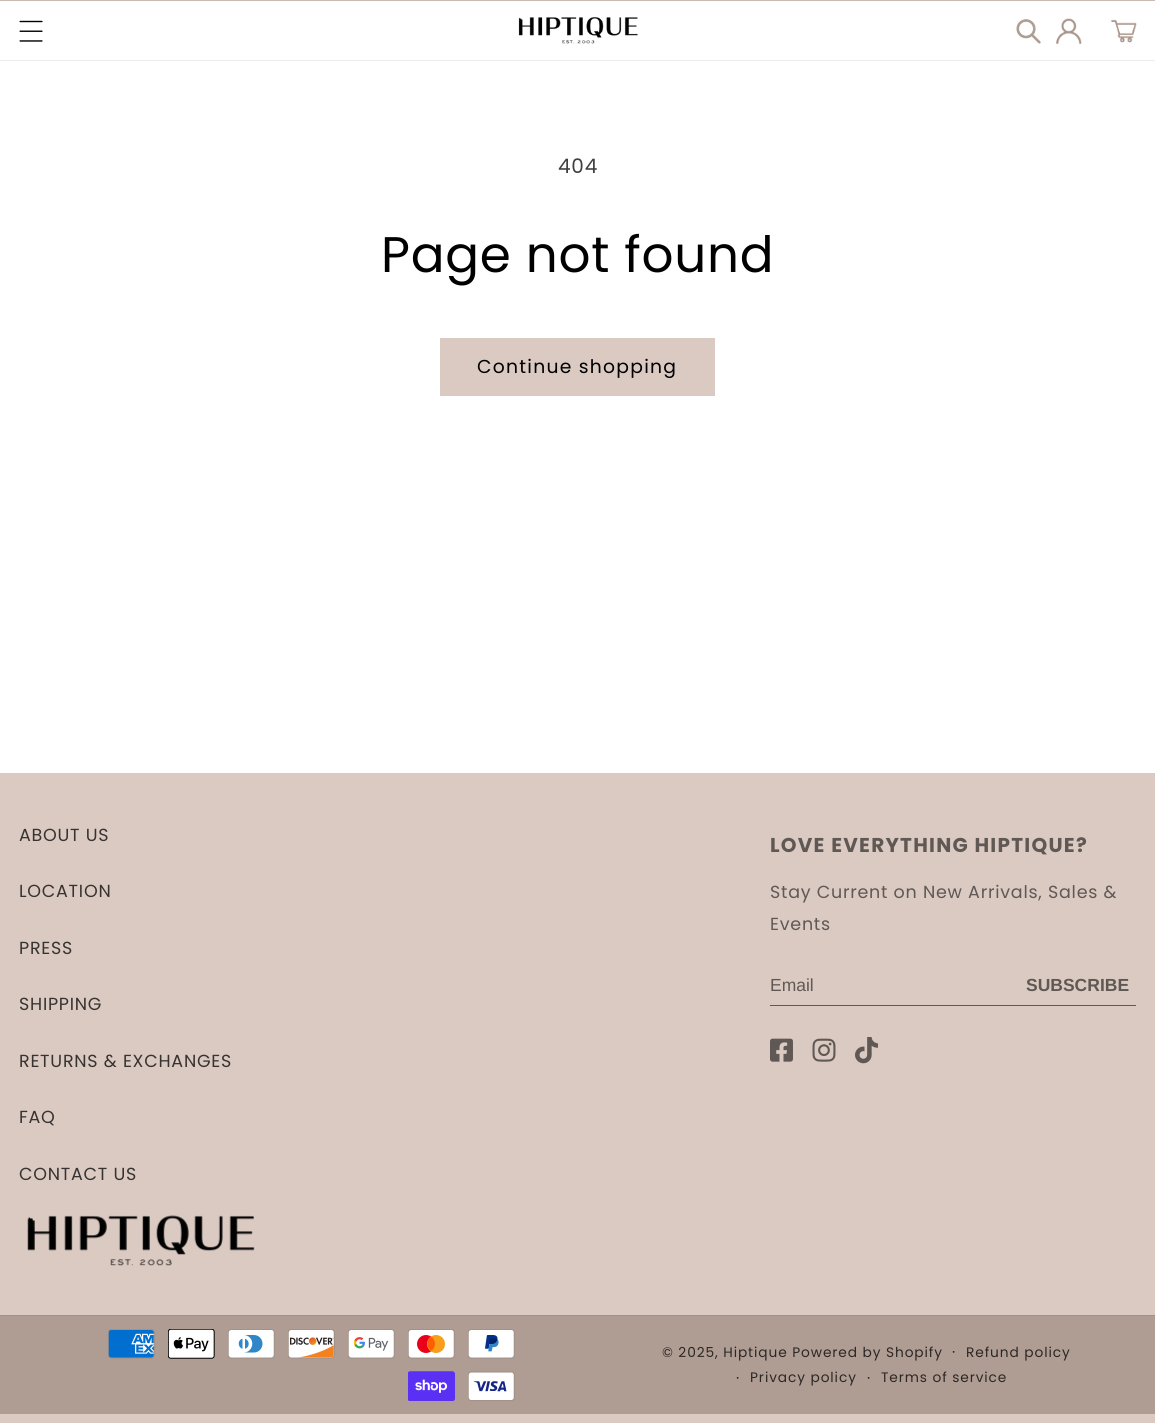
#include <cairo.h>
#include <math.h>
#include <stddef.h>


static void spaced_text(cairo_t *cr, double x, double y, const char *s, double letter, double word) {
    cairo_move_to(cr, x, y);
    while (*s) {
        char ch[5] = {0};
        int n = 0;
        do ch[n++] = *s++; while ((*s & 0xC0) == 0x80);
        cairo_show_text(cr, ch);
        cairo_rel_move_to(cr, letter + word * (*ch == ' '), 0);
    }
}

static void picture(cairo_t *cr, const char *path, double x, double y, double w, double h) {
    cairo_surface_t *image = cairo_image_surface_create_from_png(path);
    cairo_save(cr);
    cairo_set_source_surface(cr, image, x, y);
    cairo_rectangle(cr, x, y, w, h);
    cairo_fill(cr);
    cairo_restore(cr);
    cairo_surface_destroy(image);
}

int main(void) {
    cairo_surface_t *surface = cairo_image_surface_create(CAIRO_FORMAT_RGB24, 1155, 1423);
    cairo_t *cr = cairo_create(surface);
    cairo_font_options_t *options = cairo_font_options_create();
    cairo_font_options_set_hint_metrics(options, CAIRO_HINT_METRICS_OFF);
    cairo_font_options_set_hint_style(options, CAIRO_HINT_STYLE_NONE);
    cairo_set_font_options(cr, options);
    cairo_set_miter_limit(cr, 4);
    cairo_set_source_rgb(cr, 1, 1, 1);
    cairo_paint(cr);
    cairo_set_source_rgb(cr, 0.788, 0.729, 0.698);
    cairo_rectangle(cr, 0, 0, 1155, 1);
    cairo_fill(cr);
    cairo_set_source_rgb(cr, 0.922, 0.922, 0.922);
    cairo_rectangle(cr, 0, 60, 1155, 1);
    cairo_fill(cr);
    picture(cr, "img1.png", 19, 20, 24, 22);
    picture(cr, "img2.png", 518, 17, 120, 27);
    picture(cr, "img3.png", 1016, 19, 25, 25);
    picture(cr, "img4.png", 1056, 18, 26, 26);
    picture(cr, "img5.png", 1111, 19, 26, 24);
    cairo_select_font_face(cr, "Poppins", CAIRO_FONT_SLANT_NORMAL, CAIRO_FONT_WEIGHT_NORMAL);
    cairo_set_font_size(cr, 20);
    cairo_set_source_rgb(cr, 0.251, 0.251, 0.251);
    spaced_text(cr, 558, 173, "404", 0.75, 0);
    cairo_set_font_size(cr, 50);
    cairo_set_source_rgb(cr, 0, 0, 0);
    spaced_text(cr, 381, 272, "Page not found", 0.75, 0);
    cairo_set_source_rgb(cr, 0.859, 0.792, 0.761);
    cairo_rectangle(cr, 440, 338, 275, 58);
    cairo_fill(cr);
    cairo_set_font_size(cr, 18.75);
    cairo_set_source_rgb(cr, 0, 0, 0);
    spaced_text(cr, 477, 373, "Continue shopping", 1.25, 0);
    cairo_set_source_rgb(cr, 0.859, 0.792, 0.761);
    cairo_rectangle(cr, 0, 773, 1155, 650);
    cairo_fill(cr);
    cairo_set_font_size(cr, 17.5);
    cairo_set_source_rgb(cr, 0.216, 0.2, 0.192);
    spaced_text(cr, 19, 841, "ABOUT US", 0.75, 0);
    spaced_text(cr, 19, 897, "LOCATION", 0.75, 0);
    spaced_text(cr, 19, 954, "PRESS", 0.75, 0);
    spaced_text(cr, 19, 1010, "SHIPPING", 0.75, 0);
    spaced_text(cr, 19, 1067, "RETURNS & EXCHANGES", 0.75, 0);
    spaced_text(cr, 19, 1123, "FAQ", 0.75, 0);
    spaced_text(cr, 19, 1180, "CONTACT US", 0.75, 0);
    cairo_select_font_face(cr, "Poppins", CAIRO_FONT_SLANT_NORMAL, CAIRO_FONT_WEIGHT_BOLD);
    cairo_set_font_size(cr, 20);
    cairo_set_source_rgb(cr, 0.373, 0.345, 0.329);
    spaced_text(cr, 770, 852, "LOVE EVERYTHING HIPTIQUE?", 1.25, 0);
    cairo_select_font_face(cr, "Poppins", CAIRO_FONT_SLANT_NORMAL, CAIRO_FONT_WEIGHT_NORMAL);
    cairo_set_font_size(cr, 17.5);
    spaced_text(cr, 770, 898, "Stay Current on New Arrivals, Sales &", 0.75, 0);
    spaced_text(cr, 770, 930, "Events", 0.75, 0);
    cairo_rectangle(cr, 770, 1005, 366, 1);
    cairo_fill(cr);
    cairo_select_font_face(cr, "Liberation Sans", CAIRO_FONT_SLANT_NORMAL, CAIRO_FONT_WEIGHT_NORMAL);
    cairo_move_to(cr, 770, 991);
    cairo_show_text(cr, "Email");
    cairo_select_font_face(cr, "Liberation Sans", CAIRO_FONT_SLANT_NORMAL, CAIRO_FONT_WEIGHT_BOLD);
    cairo_move_to(cr, 1026, 991);
    cairo_show_text(cr, "SUBSCRIBE");
    picture(cr, "img6.png", 770, 1038, 23, 24);
    picture(cr, "img7.png", 812, 1038, 24, 24);
    picture(cr, "img8.png", 855, 1037, 23, 27);
    picture(cr, "img9.png", 27, 1215, 228, 51);
    cairo_set_source_rgb(cr, 0.686, 0.616, 0.576);
    cairo_rectangle(cr, 0, 1316, 1155, 98);
    cairo_fill(cr);
    cairo_set_source_rgb(cr, 0.631, 0.565, 0.529);
    cairo_rectangle(cr, 0, 1315, 1155, 1);
    cairo_fill(cr);
    picture(cr, "img10.png", 108, 1329, 47, 30);
    picture(cr, "img11.png", 168, 1329, 47, 30);
    picture(cr, "img12.png", 228, 1329, 47, 30);
    picture(cr, "img13.png", 288, 1329, 47, 30);
    picture(cr, "img14.png", 348, 1329, 47, 30);
    picture(cr, "img15.png", 408, 1329, 47, 30);
    picture(cr, "img16.png", 468, 1329, 47, 30);
    picture(cr, "img17.png", 408, 1371, 47, 30);
    picture(cr, "img18.png", 468, 1371, 47, 30);
    cairo_select_font_face(cr, "Poppins", CAIRO_FONT_SLANT_NORMAL, CAIRO_FONT_WEIGHT_NORMAL);
    cairo_set_font_size(cr, 13.75);
    cairo_set_source_rgb(cr, 0.173, 0.153, 0.145);
    spaced_text(cr, 662, 1357, "© 2025, Hiptique Powered by Shopify", 0.9, 0);
    cairo_set_font_size(cr, 15);
    spaced_text(cr, 952, 1357, "·", 0.9, 0);
    cairo_set_font_size(cr, 13.75);
    spaced_text(cr, 966, 1357, "Refund policy", 0.9, 0);
    cairo_set_font_size(cr, 15);
    spaced_text(cr, 736, 1383, "·", 0.9, 0);
    cairo_set_font_size(cr, 13.75);
    spaced_text(cr, 750, 1382, "Privacy policy", 0.9, 0);
    cairo_set_font_size(cr, 15);
    spaced_text(cr, 867, 1383, "·", 0.9, 0);
    cairo_set_font_size(cr, 13.75);
    spaced_text(cr, 881, 1382, "Terms of service", 0.9, 0);
    cairo_surface_write_to_png(surface, "page.png");
    cairo_font_options_destroy(options);
    cairo_destroy(cr);
    cairo_surface_destroy(surface);
    return 0;
}
